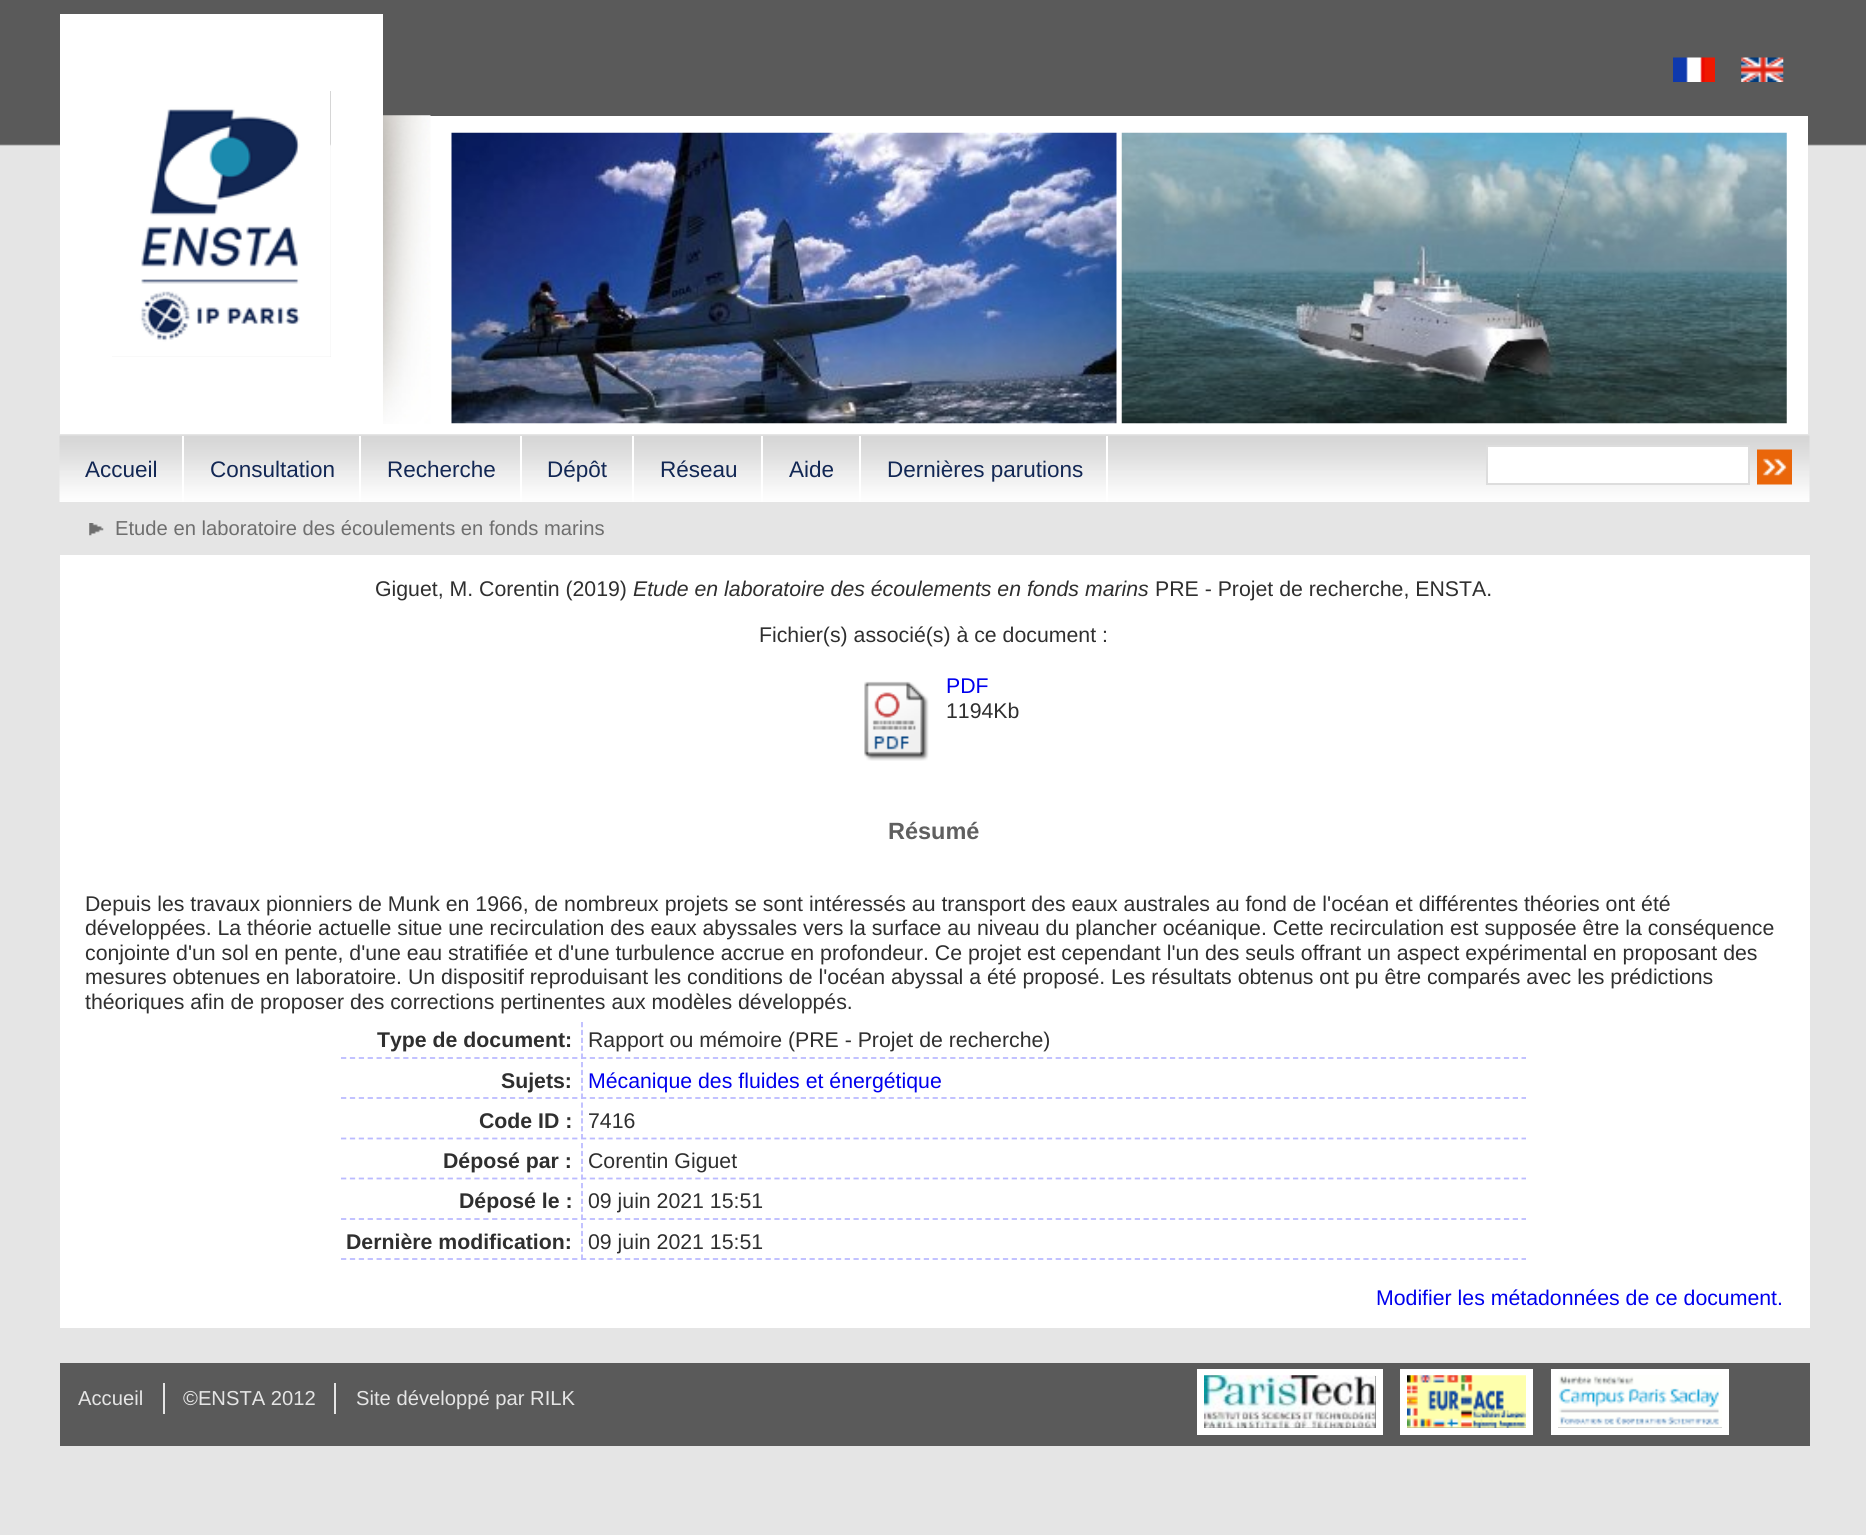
#include <cairo.h>
#include <math.h>
#include <stddef.h>


static void picture(cairo_t *cr, const char *path, double x, double y, double w, double h) {
    cairo_surface_t *image = cairo_image_surface_create_from_png(path);
    cairo_save(cr);
    cairo_set_source_surface(cr, image, x, y);
    cairo_rectangle(cr, x, y, w, h);
    cairo_fill(cr);
    cairo_restore(cr);
    cairo_surface_destroy(image);
}

int main(void) {
    cairo_surface_t *surface = cairo_image_surface_create(CAIRO_FORMAT_RGB24, 1866, 1535);
    cairo_t *cr = cairo_create(surface);
    cairo_font_options_t *options = cairo_font_options_create();
    cairo_font_options_set_hint_metrics(options, CAIRO_HINT_METRICS_OFF);
    cairo_font_options_set_hint_style(options, CAIRO_HINT_STYLE_NONE);
    cairo_set_font_options(cr, options);
    cairo_set_miter_limit(cr, 4);
    cairo_set_source_rgb(cr, 0.898, 0.898, 0.898);
    cairo_paint(cr);
    picture(cr, "img1.png", 0, 0, 1866, 146);
    cairo_set_source_rgb(cr, 1, 1, 1);
    cairo_rectangle(cr, 112, 14, 219, 77);
    cairo_fill(cr);
    cairo_rectangle(cr, 331, 14, 52, 343);
    cairo_fill(cr);
    cairo_rectangle(cr, 112, 357, 271, 77);
    cairo_fill(cr);
    cairo_rectangle(cr, 60, 14, 52, 420);
    cairo_fill(cr);
    picture(cr, "img2.png", 112, 91, 219, 266);
    picture(cr, "img3.png", 1673, 57, 42, 25);
    picture(cr, "img4.png", 1741, 57, 43, 25);
    cairo_rectangle(cr, 383, 116, 1425, 318);
    cairo_fill(cr);
    picture(cr, "img5.png", 383, 115, 48, 309);
    picture(cr, "img6.png", 451, 132, 666, 292);
    picture(cr, "img7.png", 1121, 132, 666, 292);
    picture(cr, "img8.png", 59, 435, 1751, 67);
    cairo_rectangle(cr, 182, 436, 2, 66);
    cairo_fill(cr);
    cairo_select_font_face(cr, "Liberation Sans", CAIRO_FONT_SLANT_NORMAL, CAIRO_FONT_WEIGHT_NORMAL);
    cairo_set_font_size(cr, 22.5);
    cairo_set_source_rgb(cr, 0.071, 0.153, 0.329);
    cairo_move_to(cr, 85, 477);
    cairo_show_text(cr, "Accueil");
    cairo_set_source_rgb(cr, 1, 1, 1);
    cairo_rectangle(cr, 359, 436, 2, 66);
    cairo_fill(cr);
    cairo_set_source_rgb(cr, 0.071, 0.153, 0.329);
    cairo_move_to(cr, 210, 477);
    cairo_show_text(cr, "Consultation");
    cairo_set_source_rgb(cr, 1, 1, 1);
    cairo_rectangle(cr, 520, 436, 2, 66);
    cairo_fill(cr);
    cairo_set_source_rgb(cr, 0.071, 0.153, 0.329);
    cairo_move_to(cr, 387, 477);
    cairo_show_text(cr, "Recherche");
    cairo_set_source_rgb(cr, 1, 1, 1);
    cairo_rectangle(cr, 632, 436, 2, 66);
    cairo_fill(cr);
    cairo_set_source_rgb(cr, 0.071, 0.153, 0.329);
    cairo_move_to(cr, 547, 477);
    cairo_show_text(cr, "Dépôt");
    cairo_set_source_rgb(cr, 1, 1, 1);
    cairo_rectangle(cr, 761, 436, 2, 66);
    cairo_fill(cr);
    cairo_set_source_rgb(cr, 0.071, 0.153, 0.329);
    cairo_move_to(cr, 660, 477);
    cairo_show_text(cr, "Réseau");
    cairo_set_source_rgb(cr, 1, 1, 1);
    cairo_rectangle(cr, 859, 436, 2, 66);
    cairo_fill(cr);
    cairo_set_source_rgb(cr, 0.071, 0.153, 0.329);
    cairo_move_to(cr, 789, 477);
    cairo_show_text(cr, "Aide");
    cairo_set_source_rgb(cr, 1, 1, 1);
    cairo_rectangle(cr, 1106, 436, 2, 66);
    cairo_fill(cr);
    cairo_set_source_rgb(cr, 0.071, 0.153, 0.329);
    cairo_move_to(cr, 887, 477);
    cairo_show_text(cr, "Dernières parutions");
    cairo_set_source_rgb(cr, 1, 1, 1);
    cairo_rectangle(cr, 1487, 446, 262, 38);
    cairo_fill_preserve(cr);
    cairo_set_source_rgb(cr, 0.867, 0.867, 0.867);
    cairo_stroke(cr);
    picture(cr, "img9.png", 1757, 449, 35, 36);
    picture(cr, "img10.png", 89, 523, 15, 13);
    cairo_set_font_size(cr, 20.2);
    cairo_set_source_rgb(cr, 0.431, 0.431, 0.431);
    cairo_move_to(cr, 115, 535);
    cairo_show_text(cr, "Etude en laboratoire des écoulements en fonds marins");
    cairo_set_source_rgb(cr, 1, 1, 1);
    cairo_rectangle(cr, 60, 555, 1750, 773);
    cairo_fill(cr);
    cairo_set_font_size(cr, 21.28);
    cairo_set_source_rgb(cr, 0.184, 0.184, 0.184);
    cairo_move_to(cr, 375, 596);
    cairo_show_text(cr, "Giguet, M. Corentin (2019)");
    cairo_select_font_face(cr, "Liberation Sans", CAIRO_FONT_SLANT_ITALIC, CAIRO_FONT_WEIGHT_NORMAL);
    cairo_move_to(cr, 633, 596);
    cairo_show_text(cr, "Etude en laboratoire des écoulements en fonds marins");
    cairo_select_font_face(cr, "Liberation Sans", CAIRO_FONT_SLANT_NORMAL, CAIRO_FONT_WEIGHT_NORMAL);
    cairo_move_to(cr, 1155, 596);
    cairo_show_text(cr, "PRE - Projet de recherche, ENSTA.");
    cairo_move_to(cr, 759, 642);
    cairo_show_text(cr, "Fichier(s) associé(s) à ce document :");
    picture(cr, "img11.png", 864, 681, 65, 80);
    cairo_set_source_rgb(cr, 0, 0, 0.933);
    cairo_move_to(cr, 946, 693);
    cairo_show_text(cr, "PDF");
    cairo_set_source_rgb(cr, 0.184, 0.184, 0.184);
    cairo_move_to(cr, 946, 718);
    cairo_show_text(cr, "1194Kb");
    cairo_select_font_face(cr, "Liberation Sans", CAIRO_FONT_SLANT_NORMAL, CAIRO_FONT_WEIGHT_BOLD);
    cairo_set_font_size(cr, 23.5);
    cairo_set_source_rgb(cr, 0.376, 0.376, 0.376);
    cairo_move_to(cr, 888, 839);
    cairo_show_text(cr, "Résumé");
    cairo_select_font_face(cr, "Liberation Sans", CAIRO_FONT_SLANT_NORMAL, CAIRO_FONT_WEIGHT_NORMAL);
    cairo_set_font_size(cr, 21.28);
    cairo_set_source_rgb(cr, 0.184, 0.184, 0.184);
    cairo_move_to(cr, 85, 911);
    cairo_show_text(cr, "Depuis les travaux pionniers de Munk en 1966, de nombreux projets se sont intéressés au transport des eaux australes au fond de l'océan et différentes théories ont été");
    cairo_move_to(cr, 85, 935);
    cairo_show_text(cr, "développées. La théorie actuelle situe une recirculation des eaux abyssales vers la surface au niveau du plancher océanique. Cette recirculation est supposée être la conséquence");
    cairo_move_to(cr, 85, 960);
    cairo_show_text(cr, "conjointe d'un sol en pente, d'une eau stratifiée et d'une turbulence accrue en profondeur. Ce projet est cependant l'un des seuls offrant un aspect expérimental en proposant des");
    cairo_move_to(cr, 85, 984);
    cairo_show_text(cr, "mesures obtenues en laboratoire. Un dispositif reproduisant les conditions de l'océan abyssal a été proposé. Les résultats obtenus ont pu être comparés avec les prédictions");
    cairo_move_to(cr, 85, 1009);
    cairo_show_text(cr, "théoriques afin de proposer des corrections pertinentes aux modèles développés.");
    cairo_new_path(cr);
    cairo_move_to(cr, 341, 1058);
    cairo_line_to(cr, 577.5, 1058);
    cairo_set_source_rgb(cr, 0.733, 0.733, 1);
    cairo_set_line_width(cr, 1.8);
    cairo_set_dash(cr, (double[]){5.25, 3.64}, 2, 0);
    cairo_stroke(cr);
    cairo_select_font_face(cr, "Liberation Sans", CAIRO_FONT_SLANT_NORMAL, CAIRO_FONT_WEIGHT_BOLD);
    cairo_set_source_rgb(cr, 0.184, 0.184, 0.184);
    cairo_move_to(cr, 377, 1047);
    cairo_show_text(cr, "Type de document:");
    cairo_new_path(cr);
    cairo_move_to(cr, 581, 1058);
    cairo_line_to(cr, 1526, 1058);
    cairo_set_source_rgb(cr, 0.733, 0.733, 1);
    cairo_set_dash(cr, (double[]){5.25, 3.54}, 2, 0);
    cairo_stroke(cr);
    cairo_new_path(cr);
    cairo_move_to(cr, 582, 1022);
    cairo_line_to(cr, 582, 1059);
    cairo_set_dash(cr, (double[]){5.25, 2.62}, 2, 0);
    cairo_stroke(cr);
    cairo_select_font_face(cr, "Liberation Sans", CAIRO_FONT_SLANT_NORMAL, CAIRO_FONT_WEIGHT_NORMAL);
    cairo_set_source_rgb(cr, 0.184, 0.184, 0.184);
    cairo_move_to(cr, 588, 1047);
    cairo_show_text(cr, "Rapport ou mémoire (PRE - Projet de recherche)");
    cairo_new_path(cr);
    cairo_move_to(cr, 341, 1098);
    cairo_line_to(cr, 577.5, 1098);
    cairo_set_source_rgb(cr, 0.733, 0.733, 1);
    cairo_set_dash(cr, (double[]){5.25, 3.64}, 2, 0);
    cairo_stroke(cr);
    cairo_select_font_face(cr, "Liberation Sans", CAIRO_FONT_SLANT_NORMAL, CAIRO_FONT_WEIGHT_BOLD);
    cairo_set_source_rgb(cr, 0.184, 0.184, 0.184);
    cairo_move_to(cr, 501, 1088);
    cairo_show_text(cr, "Sujets:");
    cairo_new_path(cr);
    cairo_move_to(cr, 581, 1098);
    cairo_line_to(cr, 1526, 1098);
    cairo_set_source_rgb(cr, 0.733, 0.733, 1);
    cairo_set_dash(cr, (double[]){5.25, 3.54}, 2, 0);
    cairo_stroke(cr);
    cairo_new_path(cr);
    cairo_move_to(cr, 582, 1062);
    cairo_line_to(cr, 582, 1099);
    cairo_set_dash(cr, (double[]){5.25, 2.62}, 2, 0);
    cairo_stroke(cr);
    cairo_select_font_face(cr, "Liberation Sans", CAIRO_FONT_SLANT_NORMAL, CAIRO_FONT_WEIGHT_NORMAL);
    cairo_set_source_rgb(cr, 0, 0, 0.933);
    cairo_move_to(cr, 588, 1088);
    cairo_show_text(cr, "Mécanique des fluides et énergétique");
    cairo_new_path(cr);
    cairo_move_to(cr, 341, 1138.5);
    cairo_line_to(cr, 577.5, 1138.5);
    cairo_set_source_rgb(cr, 0.733, 0.733, 1);
    cairo_set_dash(cr, (double[]){5.25, 3.64}, 2, 0);
    cairo_stroke(cr);
    cairo_select_font_face(cr, "Liberation Sans", CAIRO_FONT_SLANT_NORMAL, CAIRO_FONT_WEIGHT_BOLD);
    cairo_set_source_rgb(cr, 0.184, 0.184, 0.184);
    cairo_move_to(cr, 479, 1128);
    cairo_show_text(cr, "Code ID :");
    cairo_new_path(cr);
    cairo_move_to(cr, 581, 1138.5);
    cairo_line_to(cr, 1526, 1138.5);
    cairo_set_source_rgb(cr, 0.733, 0.733, 1);
    cairo_set_dash(cr, (double[]){5.25, 3.54}, 2, 0);
    cairo_stroke(cr);
    cairo_new_path(cr);
    cairo_move_to(cr, 582, 1102.5);
    cairo_line_to(cr, 582, 1139);
    cairo_set_dash(cr, (double[]){5.25, 2.62}, 2, 0);
    cairo_stroke(cr);
    cairo_select_font_face(cr, "Liberation Sans", CAIRO_FONT_SLANT_NORMAL, CAIRO_FONT_WEIGHT_NORMAL);
    cairo_set_source_rgb(cr, 0.184, 0.184, 0.184);
    cairo_move_to(cr, 588, 1128);
    cairo_show_text(cr, "7416");
    cairo_new_path(cr);
    cairo_move_to(cr, 341, 1178.5);
    cairo_line_to(cr, 577.5, 1178.5);
    cairo_set_source_rgb(cr, 0.733, 0.733, 1);
    cairo_set_dash(cr, (double[]){5.25, 3.64}, 2, 0);
    cairo_stroke(cr);
    cairo_select_font_face(cr, "Liberation Sans", CAIRO_FONT_SLANT_NORMAL, CAIRO_FONT_WEIGHT_BOLD);
    cairo_set_source_rgb(cr, 0.184, 0.184, 0.184);
    cairo_move_to(cr, 443, 1168);
    cairo_show_text(cr, "Déposé par :");
    cairo_new_path(cr);
    cairo_move_to(cr, 581, 1178.5);
    cairo_line_to(cr, 1526, 1178.5);
    cairo_set_source_rgb(cr, 0.733, 0.733, 1);
    cairo_set_dash(cr, (double[]){5.25, 3.54}, 2, 0);
    cairo_stroke(cr);
    cairo_new_path(cr);
    cairo_move_to(cr, 582, 1143);
    cairo_line_to(cr, 582, 1179.5);
    cairo_set_dash(cr, (double[]){5.25, 2.62}, 2, 0);
    cairo_stroke(cr);
    cairo_select_font_face(cr, "Liberation Sans", CAIRO_FONT_SLANT_NORMAL, CAIRO_FONT_WEIGHT_NORMAL);
    cairo_set_source_rgb(cr, 0.184, 0.184, 0.184);
    cairo_move_to(cr, 588, 1168);
    cairo_show_text(cr, "Corentin Giguet");
    cairo_new_path(cr);
    cairo_move_to(cr, 341, 1219);
    cairo_line_to(cr, 577.5, 1219);
    cairo_set_source_rgb(cr, 0.733, 0.733, 1);
    cairo_set_dash(cr, (double[]){5.25, 3.64}, 2, 0);
    cairo_stroke(cr);
    cairo_select_font_face(cr, "Liberation Sans", CAIRO_FONT_SLANT_NORMAL, CAIRO_FONT_WEIGHT_BOLD);
    cairo_set_source_rgb(cr, 0.184, 0.184, 0.184);
    cairo_move_to(cr, 459, 1208);
    cairo_show_text(cr, "Déposé le :");
    cairo_new_path(cr);
    cairo_move_to(cr, 581, 1219);
    cairo_line_to(cr, 1526, 1219);
    cairo_set_source_rgb(cr, 0.733, 0.733, 1);
    cairo_set_dash(cr, (double[]){5.25, 3.54}, 2, 0);
    cairo_stroke(cr);
    cairo_new_path(cr);
    cairo_move_to(cr, 582, 1183);
    cairo_line_to(cr, 582, 1220);
    cairo_set_dash(cr, (double[]){5.25, 2.62}, 2, 0);
    cairo_stroke(cr);
    cairo_select_font_face(cr, "Liberation Sans", CAIRO_FONT_SLANT_NORMAL, CAIRO_FONT_WEIGHT_NORMAL);
    cairo_set_source_rgb(cr, 0.184, 0.184, 0.184);
    cairo_move_to(cr, 588, 1208);
    cairo_show_text(cr, "09 juin 2021 15:51");
    cairo_new_path(cr);
    cairo_move_to(cr, 341, 1259);
    cairo_line_to(cr, 577.5, 1259);
    cairo_set_source_rgb(cr, 0.733, 0.733, 1);
    cairo_set_dash(cr, (double[]){5.25, 3.64}, 2, 0);
    cairo_stroke(cr);
    cairo_select_font_face(cr, "Liberation Sans", CAIRO_FONT_SLANT_NORMAL, CAIRO_FONT_WEIGHT_BOLD);
    cairo_set_source_rgb(cr, 0.184, 0.184, 0.184);
    cairo_move_to(cr, 346, 1249);
    cairo_show_text(cr, "Dernière modification:");
    cairo_new_path(cr);
    cairo_move_to(cr, 581, 1259);
    cairo_line_to(cr, 1526, 1259);
    cairo_set_source_rgb(cr, 0.733, 0.733, 1);
    cairo_set_dash(cr, (double[]){5.25, 3.54}, 2, 0);
    cairo_stroke(cr);
    cairo_new_path(cr);
    cairo_move_to(cr, 582, 1223);
    cairo_line_to(cr, 582, 1260);
    cairo_set_dash(cr, (double[]){5.25, 2.62}, 2, 0);
    cairo_stroke(cr);
    cairo_select_font_face(cr, "Liberation Sans", CAIRO_FONT_SLANT_NORMAL, CAIRO_FONT_WEIGHT_NORMAL);
    cairo_set_source_rgb(cr, 0.184, 0.184, 0.184);
    cairo_move_to(cr, 588, 1249);
    cairo_show_text(cr, "09 juin 2021 15:51");
    cairo_set_source_rgb(cr, 0, 0, 0.933);
    cairo_move_to(cr, 1376, 1305);
    cairo_show_text(cr, "Modifier les métadonnées de ce document.");
    cairo_set_source_rgb(cr, 0.353, 0.353, 0.353);
    cairo_rectangle(cr, 60, 1363, 1750, 83);
    cairo_fill(cr);
    cairo_set_font_size(cr, 20.2);
    cairo_set_source_rgb(cr, 0.898, 0.898, 0.898);
    cairo_move_to(cr, 78, 1405);
    cairo_show_text(cr, "Accueil");
    cairo_rectangle(cr, 163, 1383, 2, 31);
    cairo_fill(cr);
    cairo_move_to(cr, 183, 1405);
    cairo_show_text(cr, "©ENSTA 2012");
    cairo_rectangle(cr, 334, 1383, 2, 31);
    cairo_fill(cr);
    cairo_move_to(cr, 356, 1405);
    cairo_show_text(cr, "Site développé par RILK");
    cairo_rectangle(cr, 1200.5, 1372.5, 179, 59);
    cairo_set_source_rgb(cr, 1, 1, 1);
    cairo_set_line_width(cr, 7);
    cairo_set_dash(cr, NULL, 0, 0);
    cairo_stroke(cr);
    picture(cr, "img12.png", 1204, 1375, 172, 53);
    cairo_rectangle(cr, 1403.5, 1372.5, 126, 59);
    cairo_stroke(cr);
    picture(cr, "img13.png", 1407, 1375, 119, 53);
    cairo_rectangle(cr, 1554.5, 1372.5, 171, 59);
    cairo_stroke(cr);
    picture(cr, "img14.png", 1558, 1375, 164, 53);
    cairo_surface_write_to_png(surface, "page.png");
    cairo_font_options_destroy(options);
    cairo_destroy(cr);
    cairo_surface_destroy(surface);
    return 0;
}
